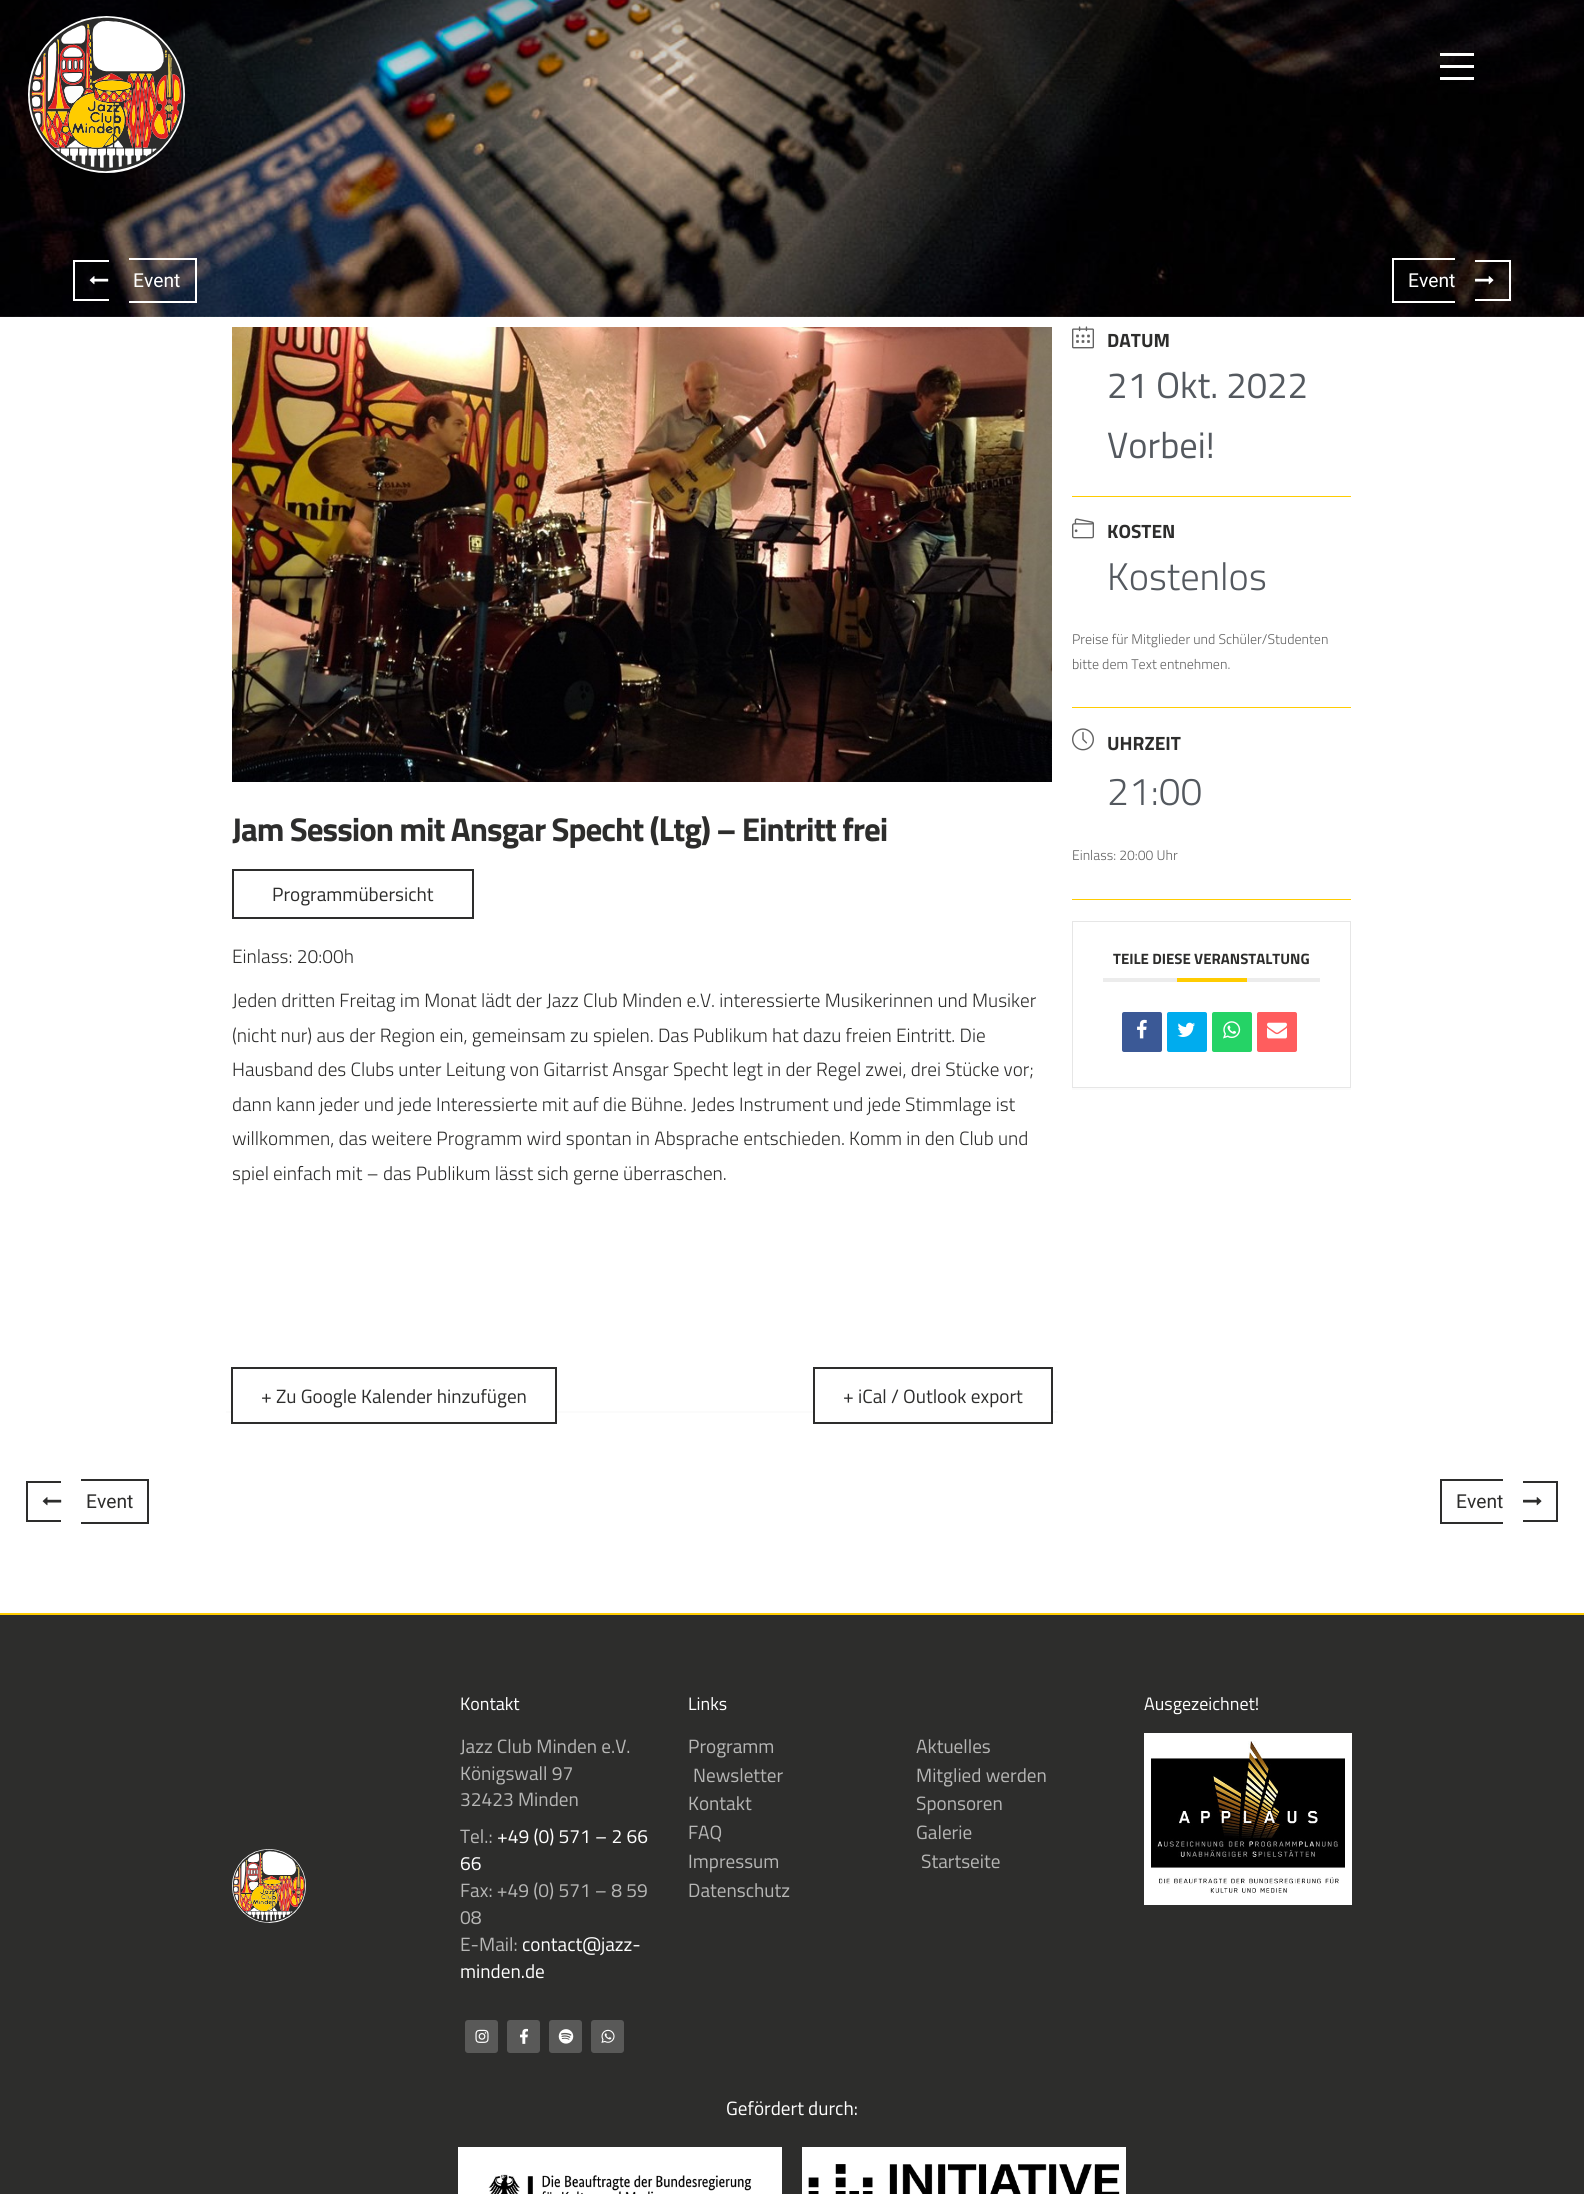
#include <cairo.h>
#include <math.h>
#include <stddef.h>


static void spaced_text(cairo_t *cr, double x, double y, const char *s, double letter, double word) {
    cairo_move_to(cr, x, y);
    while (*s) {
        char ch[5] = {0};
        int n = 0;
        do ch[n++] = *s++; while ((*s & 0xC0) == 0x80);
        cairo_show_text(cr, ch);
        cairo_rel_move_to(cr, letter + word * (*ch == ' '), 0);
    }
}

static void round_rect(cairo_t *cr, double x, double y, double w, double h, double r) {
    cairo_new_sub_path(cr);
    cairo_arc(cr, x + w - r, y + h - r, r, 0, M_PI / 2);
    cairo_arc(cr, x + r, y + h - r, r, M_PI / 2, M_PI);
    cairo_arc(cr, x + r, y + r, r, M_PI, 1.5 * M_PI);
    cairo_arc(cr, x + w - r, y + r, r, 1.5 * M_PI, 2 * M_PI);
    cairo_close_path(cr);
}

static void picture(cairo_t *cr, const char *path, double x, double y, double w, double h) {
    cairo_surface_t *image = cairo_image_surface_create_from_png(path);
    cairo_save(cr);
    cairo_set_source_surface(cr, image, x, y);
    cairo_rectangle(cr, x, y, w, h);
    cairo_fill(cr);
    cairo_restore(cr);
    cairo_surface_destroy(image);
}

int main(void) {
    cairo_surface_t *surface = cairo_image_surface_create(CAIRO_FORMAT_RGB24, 1584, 2194);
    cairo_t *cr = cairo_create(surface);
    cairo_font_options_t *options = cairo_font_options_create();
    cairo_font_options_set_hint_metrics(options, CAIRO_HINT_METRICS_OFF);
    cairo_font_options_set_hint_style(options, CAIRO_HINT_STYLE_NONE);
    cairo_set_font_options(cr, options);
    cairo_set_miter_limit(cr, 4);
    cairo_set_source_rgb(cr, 0.176, 0.176, 0.173);
    cairo_paint(cr);
    picture(cr, "img2.png", 0, 0, 1584, 317);
    picture(cr, "img1.png", 28, 16, 157, 157);
    cairo_set_source_rgb(cr, 1, 1, 1);
    cairo_rectangle(cr, 1440, 53, 34, 3);
    cairo_fill(cr);
    cairo_rectangle(cr, 1440, 65, 34, 3);
    cairo_fill(cr);
    cairo_rectangle(cr, 1440, 77, 34, 3);
    cairo_fill(cr);
    picture(cr, "img3.png", 89, 276, 20, 9);
    cairo_select_font_face(cr, "Roboto", CAIRO_FONT_SLANT_NORMAL, CAIRO_FONT_WEIGHT_NORMAL);
    cairo_set_font_size(cr, 19.2);
    cairo_move_to(cr, 133, 287);
    cairo_show_text(cr, "Event");
    cairo_rectangle(cr, 73, 260, 36, 2);
    cairo_fill(cr);
    cairo_rectangle(cr, 73, 299, 36, 2);
    cairo_fill(cr);
    cairo_rectangle(cr, 73, 260, 2, 41);
    cairo_fill(cr);
    cairo_rectangle(cr, 129, 258, 68, 2);
    cairo_fill(cr);
    cairo_rectangle(cr, 195, 258, 2, 45);
    cairo_fill(cr);
    cairo_rectangle(cr, 129, 301, 68, 2);
    cairo_fill(cr);
    cairo_move_to(cr, 1408, 287);
    cairo_show_text(cr, "Event");
    cairo_rectangle(cr, 1392, 258, 63, 2);
    cairo_fill(cr);
    cairo_rectangle(cr, 1392, 301, 63, 2);
    cairo_fill(cr);
    cairo_rectangle(cr, 1392, 258, 2, 45);
    cairo_fill(cr);
    cairo_rectangle(cr, 1475, 260, 36, 2);
    cairo_fill(cr);
    cairo_rectangle(cr, 1509, 260, 2, 41);
    cairo_fill(cr);
    cairo_rectangle(cr, 1475, 299, 36, 2);
    cairo_fill(cr);
    picture(cr, "img4.png", 1475, 276, 19, 9);
    cairo_rectangle(cr, 0, 317, 1584, 1296);
    cairo_fill(cr);
    picture(cr, "img5.png", 1072, 326, 22, 23);
    cairo_select_font_face(cr, "Titillium Web", CAIRO_FONT_SLANT_NORMAL, CAIRO_FONT_WEIGHT_BOLD);
    cairo_set_source_rgb(cr, 0.176, 0.176, 0.173);
    cairo_move_to(cr, 1107, 347);
    cairo_show_text(cr, "DATUM");
    cairo_select_font_face(cr, "Titillium Web", CAIRO_FONT_SLANT_NORMAL, CAIRO_FONT_WEIGHT_NORMAL);
    cairo_set_font_size(cr, 36.5);
    cairo_set_source_rgb(cr, 0.329, 0.349, 0.373);
    cairo_move_to(cr, 1107, 398);
    cairo_show_text(cr, "21 Okt. 2022");
    cairo_move_to(cr, 1107, 458);
    cairo_show_text(cr, "Vorbei!");
    cairo_set_source_rgb(cr, 1, 0.8, 0.004);
    cairo_rectangle(cr, 1072, 496, 279, 1);
    cairo_fill(cr);
    picture(cr, "img6.png", 1072, 518, 22, 21);
    cairo_select_font_face(cr, "Titillium Web", CAIRO_FONT_SLANT_NORMAL, CAIRO_FONT_WEIGHT_BOLD);
    cairo_set_font_size(cr, 19.2);
    cairo_set_source_rgb(cr, 0.176, 0.176, 0.173);
    cairo_move_to(cr, 1107, 538);
    cairo_show_text(cr, "KOSTEN");
    cairo_select_font_face(cr, "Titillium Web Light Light", CAIRO_FONT_SLANT_NORMAL, CAIRO_FONT_WEIGHT_NORMAL);
    cairo_set_font_size(cr, 38.5);
    cairo_set_source_rgb(cr, 0.329, 0.349, 0.373);
    cairo_move_to(cr, 1107, 590);
    cairo_show_text(cr, "Kostenlos");
    cairo_set_font_size(cr, 14);
    cairo_set_source_rgb(cr, 0.38, 0.38, 0.38);
    cairo_move_to(cr, 1072, 644);
    cairo_show_text(cr, "Preise für Mitglieder und Schüler/Studenten");
    cairo_move_to(cr, 1072, 669);
    cairo_show_text(cr, "bitte dem Text entnehmen.");
    cairo_set_source_rgb(cr, 1, 0.8, 0.004);
    cairo_rectangle(cr, 1072, 707, 279, 1);
    cairo_fill(cr);
    picture(cr, "img7.png", 1072, 728, 22, 23);
    cairo_select_font_face(cr, "Titillium Web", CAIRO_FONT_SLANT_NORMAL, CAIRO_FONT_WEIGHT_BOLD);
    cairo_set_font_size(cr, 19.2);
    cairo_set_source_rgb(cr, 0.176, 0.176, 0.173);
    cairo_move_to(cr, 1107, 750);
    cairo_show_text(cr, "UHRZEIT");
    cairo_select_font_face(cr, "Titillium Web Light Light", CAIRO_FONT_SLANT_NORMAL, CAIRO_FONT_WEIGHT_NORMAL);
    cairo_set_font_size(cr, 39);
    cairo_set_source_rgb(cr, 0.329, 0.349, 0.373);
    cairo_move_to(cr, 1107, 805);
    cairo_show_text(cr, "21:00");
    cairo_set_font_size(cr, 14);
    cairo_set_source_rgb(cr, 0.38, 0.38, 0.38);
    cairo_move_to(cr, 1072, 860);
    cairo_show_text(cr, "Einlass: 20:00 Uhr");
    cairo_set_source_rgb(cr, 1, 0.8, 0.004);
    cairo_rectangle(cr, 1072, 899, 279, 1);
    cairo_fill(cr);
    cairo_set_source_rgb(cr, 0.984, 0.984, 0.984);
    cairo_rectangle(cr, 1072, 1088, 279, 2);
    cairo_fill(cr);
    cairo_rectangle(cr, 1072.5, 921.5, 278, 166);
    cairo_set_source_rgb(cr, 0.902, 0.902, 0.902);
    cairo_set_line_width(cr, 1);
    cairo_stroke(cr);
    cairo_set_source_rgb(cr, 0.922, 0.922, 0.922);
    cairo_rectangle(cr, 1103, 978, 217, 4);
    cairo_fill(cr);
    cairo_select_font_face(cr, "Titillium Web", CAIRO_FONT_SLANT_NORMAL, CAIRO_FONT_WEIGHT_BOLD);
    cairo_set_font_size(cr, 15);
    cairo_set_source_rgb(cr, 0.176, 0.176, 0.173);
    cairo_move_to(cr, 1113, 964);
    cairo_show_text(cr, "TEILE DIESE VERANSTALTUNG");
    cairo_set_source_rgb(cr, 1, 0.8, 0.004);
    cairo_rectangle(cr, 1177, 978, 70, 4);
    cairo_fill(cr);
    cairo_set_source_rgb(cr, 0.231, 0.349, 0.588);
    round_rect(cr, 1122, 1012, 40, 40, 2);
    cairo_fill(cr);
    picture(cr, "img8.png", 1137, 1019, 10, 20);
    cairo_set_source_rgb(cr, 0, 0.675, 0.933);
    round_rect(cr, 1167, 1012, 40, 40, 2);
    cairo_fill(cr);
    picture(cr, "img9.png", 1177, 1022, 18, 15);
    cairo_set_source_rgb(cr, 0.145, 0.827, 0.4);
    round_rect(cr, 1212, 1012, 40, 40, 2);
    cairo_fill(cr);
    picture(cr, "img10.png", 1223, 1021, 18, 18);
    cairo_set_source_rgb(cr, 1, 0.365, 0.369);
    round_rect(cr, 1257, 1012, 40, 40, 2);
    cairo_fill(cr);
    picture(cr, "img11.png", 1267, 1022, 20, 17);
    picture(cr, "img12.png", 232, 327, 820, 455);
    cairo_set_font_size(cr, 33);
    cairo_set_source_rgb(cr, 0.176, 0.176, 0.173);
    spaced_text(cr, 232, 841, "Jam Session mit Ansgar Specht (Ltg) – Eintritt frei", -1, 0);
    cairo_rectangle(cr, 233, 870, 240, 48);
    cairo_set_line_width(cr, 2);
    cairo_stroke(cr);
    cairo_select_font_face(cr, "Titillium Web", CAIRO_FONT_SLANT_NORMAL, CAIRO_FONT_WEIGHT_NORMAL);
    cairo_set_font_size(cr, 19.2);
    cairo_move_to(cr, 272, 901);
    cairo_show_text(cr, "Programmübersicht");
    cairo_select_font_face(cr, "Titillium Web Light Light", CAIRO_FONT_SLANT_NORMAL, CAIRO_FONT_WEIGHT_NORMAL);
    cairo_move_to(cr, 232, 963);
    cairo_show_text(cr, "Einlass: 20:00h");
    cairo_move_to(cr, 232, 1007);
    cairo_show_text(cr, "Jeden dritten Freitag im Monat lädt der Jazz Club Minden e.V. interessierte Musikerinnen und Musiker");
    cairo_move_to(cr, 232, 1042);
    cairo_show_text(cr, "(nicht nur) aus der Region ein, gemeinsam zu spielen. Das Publikum hat dazu freien Eintritt. Die");
    cairo_move_to(cr, 232, 1076);
    cairo_show_text(cr, "Hausband des Clubs unter Leitung von Gitarrist Ansgar Specht legt in der Regel zwei, drei Stücke vor;");
    cairo_move_to(cr, 232, 1111);
    cairo_show_text(cr, "dann kann jeder und jede Interessierte mit auf die Bühne. Jedes Instrument und jede Stimmlage ist");
    cairo_move_to(cr, 232, 1145);
    cairo_show_text(cr, "willkommen, das weitere Programm wird spontan in Absprache entschieden. Komm in den Club und");
    cairo_move_to(cr, 232, 1180);
    cairo_show_text(cr, "spiel einfach mit – das Publikum lässt sich gerne überraschen.");
    cairo_set_source_rgb(cr, 0.984, 0.984, 0.984);
    cairo_rectangle(cr, 226, 1411, 832, 2);
    cairo_fill(cr);
    cairo_set_source_rgb(cr, 1, 1, 1);
    cairo_rectangle(cr, 233, 1411, 322, 2);
    cairo_fill(cr);
    cairo_rectangle(cr, 232, 1368, 324, 55);
    cairo_set_source_rgb(cr, 0.176, 0.176, 0.173);
    cairo_stroke(cr);
    cairo_select_font_face(cr, "Titillium Web", CAIRO_FONT_SLANT_NORMAL, CAIRO_FONT_WEIGHT_NORMAL);
    cairo_move_to(cr, 261, 1403);
    cairo_show_text(cr, "+ Zu Google Kalender hinzufügen");
    cairo_set_source_rgb(cr, 1, 1, 1);
    cairo_rectangle(cr, 815, 1411, 236, 2);
    cairo_fill(cr);
    cairo_rectangle(cr, 814, 1368, 238, 55);
    cairo_set_source_rgb(cr, 0.176, 0.176, 0.173);
    cairo_stroke(cr);
    cairo_move_to(cr, 843, 1403);
    cairo_show_text(cr, "+ iCal / Outlook export");
    picture(cr, "img13.png", 42, 1497, 20, 9);
    cairo_select_font_face(cr, "Roboto", CAIRO_FONT_SLANT_NORMAL, CAIRO_FONT_WEIGHT_NORMAL);
    cairo_move_to(cr, 86, 1508);
    cairo_show_text(cr, "Event");
    cairo_rectangle(cr, 26, 1481, 35, 2);
    cairo_fill(cr);
    cairo_rectangle(cr, 26, 1520, 35, 2);
    cairo_fill(cr);
    cairo_rectangle(cr, 26, 1481, 2, 41);
    cairo_fill(cr);
    cairo_rectangle(cr, 81, 1479, 68, 2);
    cairo_fill(cr);
    cairo_rectangle(cr, 147, 1479, 2, 45);
    cairo_fill(cr);
    cairo_rectangle(cr, 81, 1522, 68, 2);
    cairo_fill(cr);
    cairo_move_to(cr, 1456, 1508);
    cairo_show_text(cr, "Event");
    cairo_rectangle(cr, 1440, 1479, 63, 2);
    cairo_fill(cr);
    cairo_rectangle(cr, 1440, 1522, 63, 2);
    cairo_fill(cr);
    cairo_rectangle(cr, 1440, 1479, 2, 45);
    cairo_fill(cr);
    cairo_rectangle(cr, 1523, 1481, 35, 2);
    cairo_fill(cr);
    cairo_rectangle(cr, 1556, 1481, 2, 41);
    cairo_fill(cr);
    cairo_rectangle(cr, 1523, 1520, 35, 2);
    cairo_fill(cr);
    picture(cr, "img14.png", 1523, 1497, 19, 9);
    cairo_set_source_rgb(cr, 1, 0.8, 0.004);
    cairo_rectangle(cr, 0, 1613, 1584, 2);
    cairo_fill(cr);
    cairo_select_font_face(cr, "Titillium Web", CAIRO_FONT_SLANT_NORMAL, CAIRO_FONT_WEIGHT_NORMAL);
    cairo_set_font_size(cr, 18);
    cairo_set_source_rgb(cr, 1, 1, 1);
    cairo_move_to(cr, 460, 1710);
    cairo_show_text(cr, "Kontakt");
    cairo_set_font_size(cr, 19.2);
    cairo_set_source_rgb(cr, 0.714, 0.714, 0.71);
    cairo_move_to(cr, 460, 1753);
    cairo_show_text(cr, "Jazz Club Minden e.V.");
    cairo_move_to(cr, 460, 1780);
    cairo_show_text(cr, "Königswall 97");
    cairo_move_to(cr, 460, 1806);
    cairo_show_text(cr, "32423 Minden");
    cairo_move_to(cr, 460, 1843);
    cairo_show_text(cr, "Tel.:");
    cairo_set_source_rgb(cr, 1, 1, 1);
    cairo_move_to(cr, 497, 1843);
    cairo_show_text(cr, "+49 (0) 571 – 2 66");
    cairo_move_to(cr, 460, 1870);
    cairo_show_text(cr, "66");
    cairo_set_source_rgb(cr, 0.714, 0.714, 0.71);
    cairo_move_to(cr, 460, 1897);
    cairo_show_text(cr, "Fax: +49 (0) 571 – 8 59");
    cairo_move_to(cr, 460, 1924);
    cairo_show_text(cr, "08");
    cairo_move_to(cr, 460, 1951);
    cairo_show_text(cr, "E-Mail:");
    cairo_set_source_rgb(cr, 1, 1, 1);
    cairo_move_to(cr, 522, 1951);
    cairo_show_text(cr, "contact@jazz-");
    cairo_move_to(cr, 460, 1978);
    cairo_show_text(cr, "minden.de");
    cairo_set_source_rgb(cr, 0.349, 0.349, 0.345);
    round_rect(cr, 465, 2020, 33, 33, 3);
    cairo_fill(cr);
    picture(cr, "img15.png", 475, 2029, 14, 14);
    round_rect(cr, 507, 2020, 33, 33, 3);
    cairo_fill(cr);
    picture(cr, "img16.png", 520, 2028, 8, 16);
    round_rect(cr, 549, 2020, 33, 33, 3);
    cairo_fill(cr);
    picture(cr, "img17.png", 558, 2029, 16, 15);
    round_rect(cr, 591, 2020, 33, 33, 3);
    cairo_fill(cr);
    picture(cr, "img18.png", 601, 2029, 14, 14);
    cairo_set_font_size(cr, 18);
    cairo_set_source_rgb(cr, 1, 1, 1);
    cairo_move_to(cr, 688, 1710);
    cairo_show_text(cr, "Links");
    cairo_set_font_size(cr, 19.2);
    cairo_set_source_rgb(cr, 0.714, 0.714, 0.71);
    cairo_move_to(cr, 688, 1753);
    cairo_show_text(cr, "Programm");
    cairo_move_to(cr, 693, 1782);
    cairo_show_text(cr, "Newsletter");
    cairo_move_to(cr, 688, 1810);
    cairo_show_text(cr, "Kontakt");
    cairo_move_to(cr, 688, 1839);
    cairo_show_text(cr, "FAQ");
    cairo_move_to(cr, 688, 1868);
    cairo_show_text(cr, "Impressum");
    cairo_move_to(cr, 688, 1897);
    cairo_show_text(cr, "Datenschutz");
    cairo_set_font_size(cr, 18);
    cairo_set_source_rgb(cr, 1, 1, 1);
    cairo_move_to(cr, 1144, 1710);
    cairo_show_text(cr, "Ausgezeichnet!");
    picture(cr, "img19.png", 1144, 1733, 208, 172);
    cairo_set_font_size(cr, 19.2);
    cairo_set_source_rgb(cr, 0.714, 0.714, 0.71);
    cairo_move_to(cr, 916, 1753);
    cairo_show_text(cr, "Aktuelles");
    cairo_move_to(cr, 916, 1782);
    cairo_show_text(cr, "Mitglied werden");
    cairo_move_to(cr, 916, 1810);
    cairo_show_text(cr, "Sponsoren");
    cairo_move_to(cr, 916, 1839);
    cairo_show_text(cr, "Galerie");
    cairo_move_to(cr, 921, 1868);
    cairo_show_text(cr, "Startseite");
    picture(cr, "img20.png", 232, 1849, 74, 74);
    cairo_set_source_rgb(cr, 1, 1, 1);
    cairo_move_to(cr, 726, 2115);
    cairo_show_text(cr, "Gefördert durch:");
    picture(cr, "img21.png", 458, 2147, 324, 47);
    picture(cr, "img22.png", 802, 2147, 324, 47);
    cairo_surface_write_to_png(surface, "page.png");
    cairo_font_options_destroy(options);
    cairo_destroy(cr);
    cairo_surface_destroy(surface);
    return 0;
}
